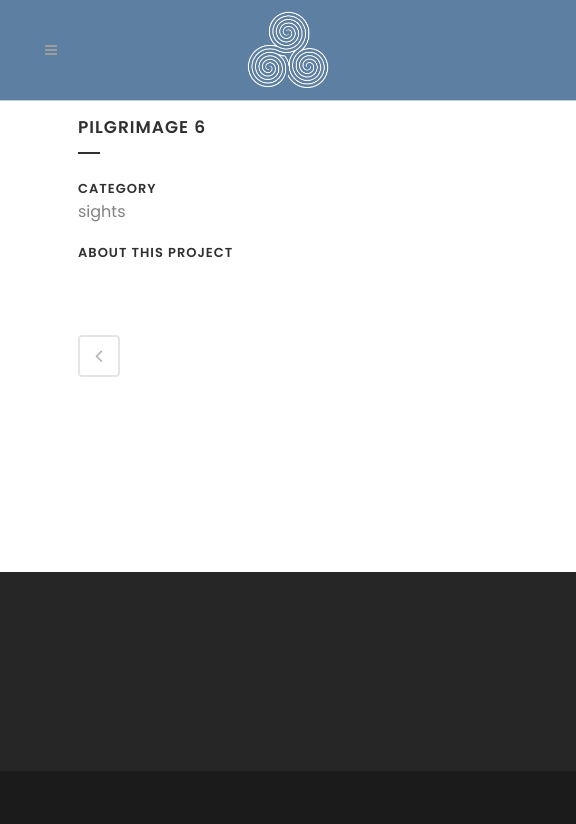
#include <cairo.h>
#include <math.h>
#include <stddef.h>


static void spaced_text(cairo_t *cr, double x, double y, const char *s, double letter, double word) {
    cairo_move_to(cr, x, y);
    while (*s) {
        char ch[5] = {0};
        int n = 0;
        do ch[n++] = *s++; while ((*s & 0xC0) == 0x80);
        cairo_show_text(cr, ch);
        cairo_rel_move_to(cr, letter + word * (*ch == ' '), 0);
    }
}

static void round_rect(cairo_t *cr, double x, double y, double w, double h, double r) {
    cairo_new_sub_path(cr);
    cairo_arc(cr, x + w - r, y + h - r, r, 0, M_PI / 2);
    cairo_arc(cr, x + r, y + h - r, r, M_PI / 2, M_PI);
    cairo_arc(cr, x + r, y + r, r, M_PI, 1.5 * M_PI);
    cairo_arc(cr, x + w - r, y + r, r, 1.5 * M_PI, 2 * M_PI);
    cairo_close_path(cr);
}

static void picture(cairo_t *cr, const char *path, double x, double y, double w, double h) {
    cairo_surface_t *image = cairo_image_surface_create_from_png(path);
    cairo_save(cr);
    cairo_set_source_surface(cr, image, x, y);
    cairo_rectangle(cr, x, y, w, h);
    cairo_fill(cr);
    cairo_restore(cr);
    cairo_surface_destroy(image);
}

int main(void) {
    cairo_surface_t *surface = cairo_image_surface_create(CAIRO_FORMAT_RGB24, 576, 824);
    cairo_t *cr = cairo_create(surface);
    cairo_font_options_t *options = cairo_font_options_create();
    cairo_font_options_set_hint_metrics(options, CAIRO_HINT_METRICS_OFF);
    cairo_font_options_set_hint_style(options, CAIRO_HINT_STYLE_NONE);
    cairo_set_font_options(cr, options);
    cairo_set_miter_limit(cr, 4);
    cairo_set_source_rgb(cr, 1, 1, 1);
    cairo_paint(cr);
    cairo_set_source_rgb(cr, 0.365, 0.498, 0.635);
    cairo_rectangle(cr, 0, 0, 576, 100);
    cairo_fill(cr);
    cairo_set_source_rgb(cr, 0.745, 0.8, 0.855);
    cairo_rectangle(cr, 0, 100, 576, 1);
    cairo_fill(cr);
    picture(cr, "img1.png", 45, 45, 12, 10);
    picture(cr, "img2.png", 247, 11, 82, 77);
    cairo_select_font_face(cr, "Poppins SemiBold", CAIRO_FONT_SLANT_NORMAL, CAIRO_FONT_WEIGHT_NORMAL);
    cairo_set_font_size(cr, 17);
    cairo_set_source_rgb(cr, 0.188, 0.188, 0.188);
    spaced_text(cr, 78, 133, "PILGRIMAGE 6", 1, 0);
    cairo_rectangle(cr, 78, 152, 22, 2);
    cairo_fill(cr);
    cairo_set_font_size(cr, 13);
    spaced_text(cr, 78, 193, "CATEGORY", 1, 0);
    cairo_select_font_face(cr, "Poppins", CAIRO_FONT_SLANT_NORMAL, CAIRO_FONT_WEIGHT_NORMAL);
    cairo_set_font_size(cr, 16);
    cairo_set_source_rgb(cr, 0.506, 0.506, 0.506);
    cairo_move_to(cr, 78, 217);
    cairo_show_text(cr, "sights");
    cairo_select_font_face(cr, "Poppins SemiBold", CAIRO_FONT_SLANT_NORMAL, CAIRO_FONT_WEIGHT_NORMAL);
    cairo_set_font_size(cr, 13);
    cairo_set_source_rgb(cr, 0.188, 0.188, 0.188);
    spaced_text(cr, 78, 257, "ABOUT THIS PROJECT", 1, 0);
    round_rect(cr, 79, 336, 40, 40, 3);
    cairo_set_source_rgb(cr, 0.898, 0.898, 0.898);
    cairo_stroke(cr);
    picture(cr, "img3.png", 95, 350, 8, 12);
    cairo_set_source_rgb(cr, 0.149, 0.149, 0.149);
    cairo_rectangle(cr, 0, 572, 576, 199);
    cairo_fill(cr);
    cairo_set_source_rgb(cr, 0.106, 0.106, 0.106);
    cairo_rectangle(cr, 0, 771, 576, 53);
    cairo_fill(cr);
    cairo_surface_write_to_png(surface, "page.png");
    cairo_font_options_destroy(options);
    cairo_destroy(cr);
    cairo_surface_destroy(surface);
    return 0;
}
